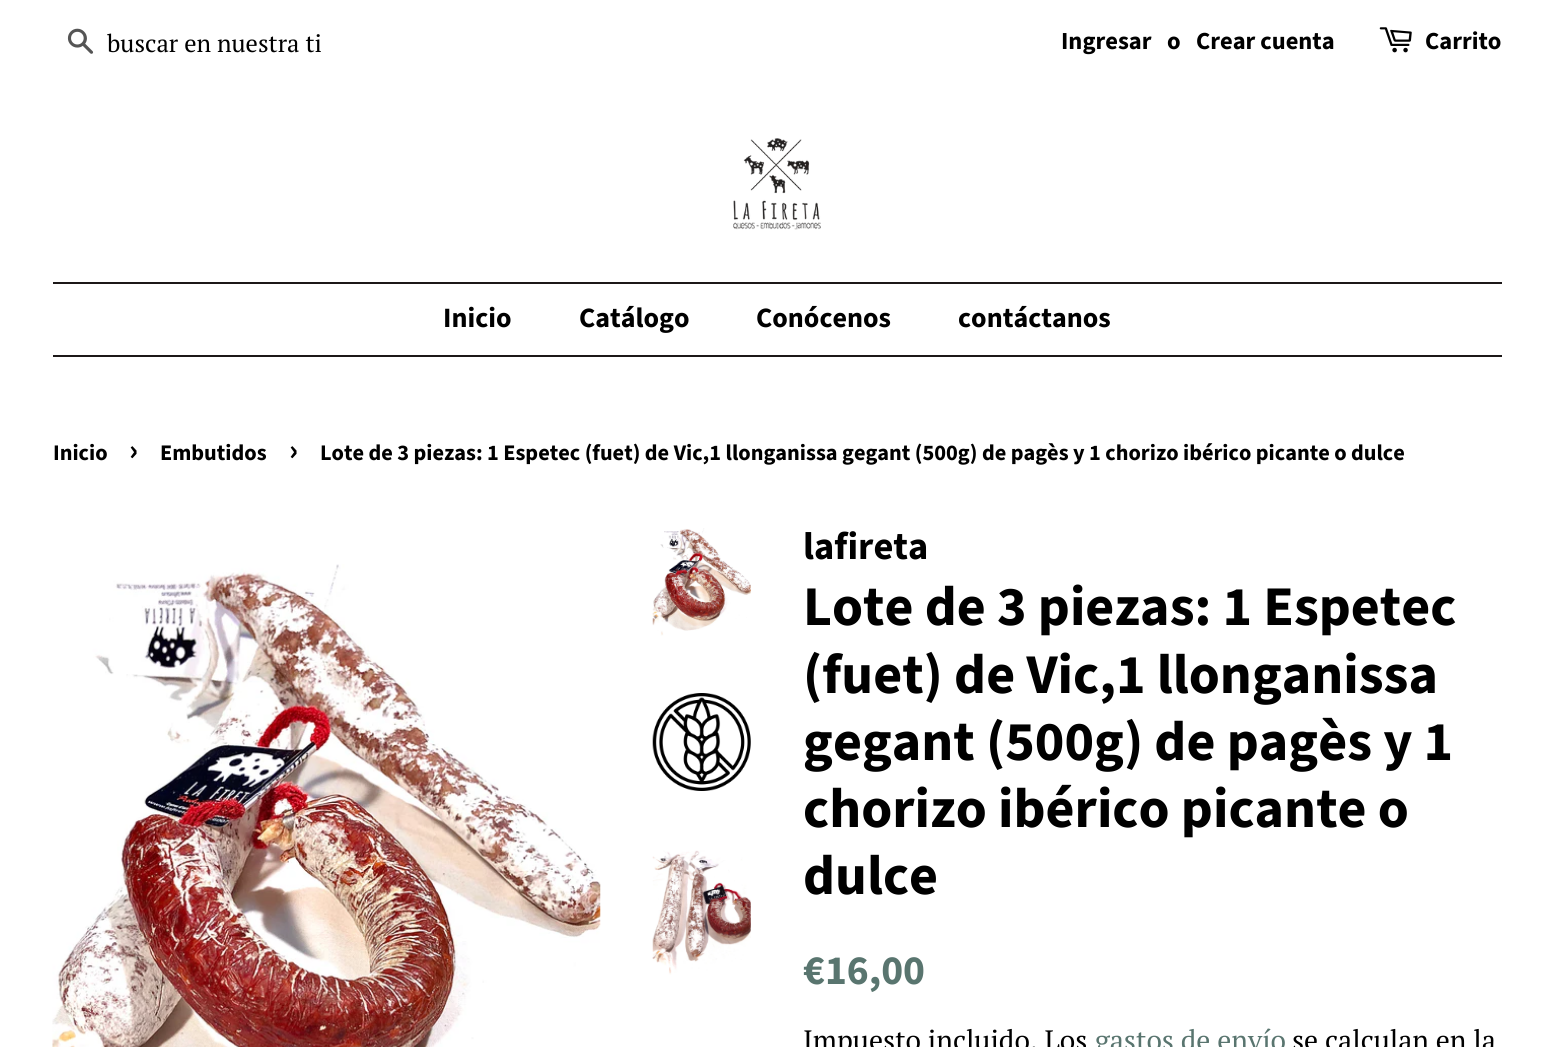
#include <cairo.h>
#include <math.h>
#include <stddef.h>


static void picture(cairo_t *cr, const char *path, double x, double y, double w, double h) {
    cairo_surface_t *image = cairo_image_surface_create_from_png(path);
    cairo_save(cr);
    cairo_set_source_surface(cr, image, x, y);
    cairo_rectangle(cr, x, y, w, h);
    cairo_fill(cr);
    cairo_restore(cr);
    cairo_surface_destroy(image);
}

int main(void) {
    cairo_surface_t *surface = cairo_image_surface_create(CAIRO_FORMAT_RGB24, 1554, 1047);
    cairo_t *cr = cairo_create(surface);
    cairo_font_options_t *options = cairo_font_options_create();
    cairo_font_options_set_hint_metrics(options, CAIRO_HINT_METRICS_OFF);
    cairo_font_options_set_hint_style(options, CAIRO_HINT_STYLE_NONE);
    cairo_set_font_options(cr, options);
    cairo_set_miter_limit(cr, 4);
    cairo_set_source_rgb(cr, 1, 1, 1);
    cairo_paint(cr);
    picture(cr, "img1.png", 67, 28, 27, 26);
    cairo_select_font_face(cr, "PT Serif", CAIRO_FONT_SLANT_NORMAL, CAIRO_FONT_WEIGHT_NORMAL);
    cairo_set_font_size(cr, 24.5);
    cairo_set_source_rgb(cr, 0, 0, 0);
    cairo_move_to(cr, 107, 52);
    cairo_show_text(cr, "buscar en nuestra ti");
    cairo_select_font_face(cr, "Source Sans Pro", CAIRO_FONT_SLANT_NORMAL, CAIRO_FONT_WEIGHT_BOLD);
    cairo_move_to(cr, 1061, 49);
    cairo_show_text(cr, "Ingresar");
    cairo_move_to(cr, 1167, 49);
    cairo_show_text(cr, "o");
    cairo_move_to(cr, 1196, 49);
    cairo_show_text(cr, "Crear cuenta");
    picture(cr, "img2.png", 1379, 27, 33, 26);
    cairo_move_to(cr, 1425, 49);
    cairo_show_text(cr, "Carrito");
    picture(cr, "img3.png", 733, 138, 88, 92);
    cairo_set_source_rgb(cr, 0.11, 0.094, 0.094);
    cairo_rectangle(cr, 53, 282, 1449, 2);
    cairo_fill(cr);
    cairo_rectangle(cr, 53, 355, 1449, 2);
    cairo_fill(cr);
    cairo_set_font_size(cr, 28);
    cairo_set_source_rgb(cr, 0, 0, 0);
    cairo_move_to(cr, 443, 327);
    cairo_show_text(cr, "Inicio");
    cairo_move_to(cr, 579, 327);
    cairo_show_text(cr, "Catálogo");
    cairo_move_to(cr, 756, 327);
    cairo_show_text(cr, "Conócenos");
    cairo_move_to(cr, 958, 327);
    cairo_show_text(cr, "contáctanos");
    cairo_set_font_size(cr, 22.3);
    cairo_move_to(cr, 53, 460);
    cairo_show_text(cr, "Inicio");
    cairo_set_font_size(cr, 31);
    cairo_move_to(cr, 129, 460);
    cairo_show_text(cr, "›");
    cairo_set_font_size(cr, 22.3);
    cairo_move_to(cr, 160, 460);
    cairo_show_text(cr, "Embutidos");
    cairo_set_font_size(cr, 31);
    cairo_move_to(cr, 289, 460);
    cairo_show_text(cr, "›");
    cairo_set_font_size(cr, 22.3);
    cairo_move_to(cr, 320, 460);
    cairo_show_text(cr, "Lote de 3 piezas: 1 Espetec (fuet) de Vic,1 llonganissa gegant (500g) de pagès y 1 chorizo ibérico picante o dulce");
    picture(cr, "img4.png", 52, 564, 549, 483);
    picture(cr, "img5.png", 652, 528, 99, 108);
    picture(cr, "img6.png", 652, 693, 99, 98);
    picture(cr, "img7.png", 652, 850, 99, 125);
    cairo_set_font_size(cr, 38.5);
    cairo_move_to(cr, 803, 559);
    cairo_show_text(cr, "lafireta");
    cairo_set_font_size(cr, 56);
    cairo_move_to(cr, 803, 625);
    cairo_show_text(cr, "Lote de 3 piezas: 1 Espetec");
    cairo_move_to(cr, 803, 693);
    cairo_show_text(cr, "(fuet) de Vic,1 llonganissa");
    cairo_move_to(cr, 803, 760);
    cairo_show_text(cr, "gegant (500g) de pagès y 1");
    cairo_move_to(cr, 803, 827);
    cairo_show_text(cr, "chorizo ibérico picante o");
    cairo_move_to(cr, 803, 894);
    cairo_show_text(cr, "dulce");
    cairo_set_font_size(cr, 41.5);
    cairo_set_source_rgb(cr, 0.349, 0.459, 0.435);
    cairo_move_to(cr, 803, 984);
    cairo_show_text(cr, "€16,00");
    cairo_select_font_face(cr, "PT Serif", CAIRO_FONT_SLANT_NORMAL, CAIRO_FONT_WEIGHT_NORMAL);
    cairo_set_font_size(cr, 28);
    cairo_set_source_rgb(cr, 0, 0, 0);
    cairo_move_to(cr, 803, 1050);
    cairo_show_text(cr, "Impuesto incluido. Los");
    cairo_set_source_rgb(cr, 0.349, 0.459, 0.435);
    cairo_move_to(cr, 1095, 1050);
    cairo_show_text(cr, "gastos de envío");
    cairo_set_source_rgb(cr, 0, 0, 0);
    cairo_move_to(cr, 1292, 1050);
    cairo_show_text(cr, "se calculan en la");
    cairo_surface_write_to_png(surface, "page.png");
    cairo_font_options_destroy(options);
    cairo_destroy(cr);
    cairo_surface_destroy(surface);
    return 0;
}
